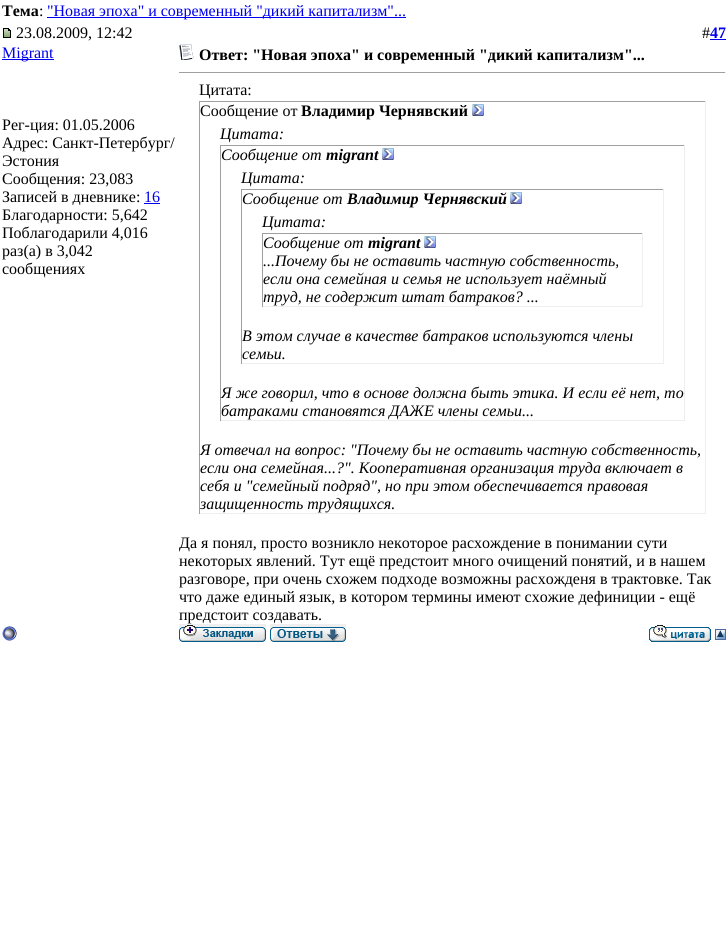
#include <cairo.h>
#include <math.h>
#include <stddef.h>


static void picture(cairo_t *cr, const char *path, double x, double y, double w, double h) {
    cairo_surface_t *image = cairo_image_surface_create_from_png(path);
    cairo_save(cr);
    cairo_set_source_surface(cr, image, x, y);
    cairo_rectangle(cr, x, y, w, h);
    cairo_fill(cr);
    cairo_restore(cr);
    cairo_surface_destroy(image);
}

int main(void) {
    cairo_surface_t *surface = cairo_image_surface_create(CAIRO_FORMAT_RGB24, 728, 941);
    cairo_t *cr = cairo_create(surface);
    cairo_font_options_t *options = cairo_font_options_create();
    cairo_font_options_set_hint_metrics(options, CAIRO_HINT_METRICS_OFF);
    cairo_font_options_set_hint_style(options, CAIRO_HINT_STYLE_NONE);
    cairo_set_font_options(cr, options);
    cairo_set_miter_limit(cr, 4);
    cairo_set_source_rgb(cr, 1, 1, 1);
    cairo_paint(cr);
    cairo_select_font_face(cr, "Liberation Serif", CAIRO_FONT_SLANT_NORMAL, CAIRO_FONT_WEIGHT_BOLD);
    cairo_set_font_size(cr, 16);
    cairo_set_source_rgb(cr, 0, 0, 0);
    cairo_move_to(cr, 2, 16);
    cairo_show_text(cr, "Тема");
    cairo_select_font_face(cr, "Liberation Serif", CAIRO_FONT_SLANT_NORMAL, CAIRO_FONT_WEIGHT_NORMAL);
    cairo_move_to(cr, 39, 16);
    cairo_show_text(cr, ":");
    cairo_set_source_rgb(cr, 0, 0, 0.933);
    cairo_rectangle(cr, 47, 17, 359, 1);
    cairo_fill(cr);
    cairo_move_to(cr, 47, 16);
    cairo_show_text(cr, "\"Новая эпоха\" и современный \"дикий капитализм\"...");
    picture(cr, "img1.png", 3, 28, 8, 10);
    cairo_set_source_rgb(cr, 0, 0, 0);
    cairo_move_to(cr, 16, 38);
    cairo_show_text(cr, "23.08.2009, 12:42");
    cairo_move_to(cr, 702, 38);
    cairo_show_text(cr, "#");
    cairo_select_font_face(cr, "Liberation Serif", CAIRO_FONT_SLANT_NORMAL, CAIRO_FONT_WEIGHT_BOLD);
    cairo_set_source_rgb(cr, 0, 0, 0.933);
    cairo_move_to(cr, 710, 38);
    cairo_show_text(cr, "47");
    cairo_rectangle(cr, 710, 39, 16, 1);
    cairo_fill(cr);
    cairo_rectangle(cr, 2, 59, 52, 1);
    cairo_fill(cr);
    cairo_select_font_face(cr, "Liberation Serif", CAIRO_FONT_SLANT_NORMAL, CAIRO_FONT_WEIGHT_NORMAL);
    cairo_move_to(cr, 2, 58);
    cairo_show_text(cr, "Migrant");
    cairo_set_source_rgb(cr, 0, 0, 0);
    cairo_move_to(cr, 2, 130);
    cairo_show_text(cr, "Рег-ция: 01.05.2006");
    cairo_move_to(cr, 2, 148);
    cairo_show_text(cr, "Адрес: Санкт-Петербург/");
    cairo_move_to(cr, 2, 166);
    cairo_show_text(cr, "Эстония");
    cairo_move_to(cr, 2, 184);
    cairo_show_text(cr, "Сообщения: 23,083");
    cairo_move_to(cr, 2, 202);
    cairo_show_text(cr, "Записей в дневнике:");
    cairo_set_source_rgb(cr, 0, 0, 0.933);
    cairo_move_to(cr, 144, 202);
    cairo_show_text(cr, "16");
    cairo_rectangle(cr, 144, 203, 16, 1);
    cairo_fill(cr);
    cairo_set_source_rgb(cr, 0, 0, 0);
    cairo_move_to(cr, 2, 220);
    cairo_show_text(cr, "Благодарности: 5,642");
    cairo_move_to(cr, 2, 238);
    cairo_show_text(cr, "Поблагодарили 4,016");
    cairo_move_to(cr, 2, 256);
    cairo_show_text(cr, "раз(а) в 3,042");
    cairo_move_to(cr, 2, 274);
    cairo_show_text(cr, "сообщениях");
    picture(cr, "img2.png", 179, 44, 15, 16);
    cairo_select_font_face(cr, "Liberation Serif", CAIRO_FONT_SLANT_NORMAL, CAIRO_FONT_WEIGHT_BOLD);
    cairo_move_to(cr, 199, 60);
    cairo_show_text(cr, "Ответ: \"Новая эпоха\" и современный \"дикий капитализм\"...");
    cairo_set_source_rgb(cr, 0.624, 0.624, 0.624);
    cairo_rectangle(cr, 179, 72, 547, 1);
    cairo_fill(cr);
    cairo_set_source_rgb(cr, 0.933, 0.933, 0.933);
    cairo_rectangle(cr, 725, 72, 1, 1);
    cairo_fill(cr);
    cairo_select_font_face(cr, "Liberation Serif", CAIRO_FONT_SLANT_NORMAL, CAIRO_FONT_WEIGHT_NORMAL);
    cairo_set_source_rgb(cr, 0, 0, 0);
    cairo_move_to(cr, 199, 95);
    cairo_show_text(cr, "Цитата:");
    cairo_set_source_rgb(cr, 0.624, 0.624, 0.624);
    cairo_rectangle(cr, 199, 101, 507, 1);
    cairo_fill(cr);
    cairo_set_source_rgb(cr, 0.933, 0.933, 0.933);
    cairo_rectangle(cr, 705, 101, 1, 413);
    cairo_fill(cr);
    cairo_rectangle(cr, 199, 513, 507, 1);
    cairo_fill(cr);
    cairo_set_source_rgb(cr, 0.624, 0.624, 0.624);
    cairo_rectangle(cr, 199, 101, 1, 413);
    cairo_fill(cr);
    cairo_set_source_rgb(cr, 0, 0, 0);
    cairo_move_to(cr, 200, 116);
    cairo_show_text(cr, "Сообщение от");
    cairo_select_font_face(cr, "Liberation Serif", CAIRO_FONT_SLANT_NORMAL, CAIRO_FONT_WEIGHT_BOLD);
    cairo_move_to(cr, 301, 116);
    cairo_show_text(cr, "Владимир Чернявский");
    picture(cr, "img3.png", 472, 104, 12, 12);
    cairo_select_font_face(cr, "Liberation Serif", CAIRO_FONT_SLANT_ITALIC, CAIRO_FONT_WEIGHT_NORMAL);
    cairo_move_to(cr, 220, 139);
    cairo_show_text(cr, "Цитата:");
    cairo_set_source_rgb(cr, 0.624, 0.624, 0.624);
    cairo_rectangle(cr, 220, 145, 465, 1);
    cairo_fill(cr);
    cairo_set_source_rgb(cr, 0.933, 0.933, 0.933);
    cairo_rectangle(cr, 684, 145, 1, 276);
    cairo_fill(cr);
    cairo_rectangle(cr, 220, 420, 465, 1);
    cairo_fill(cr);
    cairo_set_source_rgb(cr, 0.624, 0.624, 0.624);
    cairo_rectangle(cr, 220, 145, 1, 276);
    cairo_fill(cr);
    cairo_set_source_rgb(cr, 0, 0, 0);
    cairo_move_to(cr, 221, 160);
    cairo_show_text(cr, "Сообщение от");
    cairo_select_font_face(cr, "Liberation Serif", CAIRO_FONT_SLANT_ITALIC, CAIRO_FONT_WEIGHT_BOLD);
    cairo_move_to(cr, 326, 160);
    cairo_show_text(cr, "migrant");
    picture(cr, "img3.png", 382, 148, 12, 12);
    cairo_select_font_face(cr, "Liberation Serif", CAIRO_FONT_SLANT_ITALIC, CAIRO_FONT_WEIGHT_NORMAL);
    cairo_move_to(cr, 241, 183);
    cairo_show_text(cr, "Цитата:");
    cairo_set_source_rgb(cr, 0.624, 0.624, 0.624);
    cairo_rectangle(cr, 241, 189, 423, 1);
    cairo_fill(cr);
    cairo_set_source_rgb(cr, 0.933, 0.933, 0.933);
    cairo_rectangle(cr, 663, 189, 1, 175);
    cairo_fill(cr);
    cairo_rectangle(cr, 241, 363, 423, 1);
    cairo_fill(cr);
    cairo_set_source_rgb(cr, 0.624, 0.624, 0.624);
    cairo_rectangle(cr, 241, 189, 1, 175);
    cairo_fill(cr);
    cairo_set_source_rgb(cr, 0, 0, 0);
    cairo_move_to(cr, 242, 204);
    cairo_show_text(cr, "Сообщение от");
    cairo_select_font_face(cr, "Liberation Serif", CAIRO_FONT_SLANT_ITALIC, CAIRO_FONT_WEIGHT_BOLD);
    cairo_move_to(cr, 347, 204);
    cairo_show_text(cr, "Владимир Чернявский");
    picture(cr, "img3.png", 510, 192, 12, 12);
    cairo_select_font_face(cr, "Liberation Serif", CAIRO_FONT_SLANT_ITALIC, CAIRO_FONT_WEIGHT_NORMAL);
    cairo_move_to(cr, 262, 227);
    cairo_show_text(cr, "Цитата:");
    cairo_set_source_rgb(cr, 0.624, 0.624, 0.624);
    cairo_rectangle(cr, 262, 233, 381, 1);
    cairo_fill(cr);
    cairo_set_source_rgb(cr, 0.933, 0.933, 0.933);
    cairo_rectangle(cr, 642, 233, 1, 74);
    cairo_fill(cr);
    cairo_rectangle(cr, 262, 306, 381, 1);
    cairo_fill(cr);
    cairo_set_source_rgb(cr, 0.624, 0.624, 0.624);
    cairo_rectangle(cr, 262, 233, 1, 74);
    cairo_fill(cr);
    cairo_set_source_rgb(cr, 0, 0, 0);
    cairo_move_to(cr, 263, 248);
    cairo_show_text(cr, "Сообщение от");
    cairo_select_font_face(cr, "Liberation Serif", CAIRO_FONT_SLANT_ITALIC, CAIRO_FONT_WEIGHT_BOLD);
    cairo_move_to(cr, 368, 248);
    cairo_show_text(cr, "migrant");
    picture(cr, "img3.png", 424, 236, 12, 12);
    cairo_select_font_face(cr, "Liberation Serif", CAIRO_FONT_SLANT_ITALIC, CAIRO_FONT_WEIGHT_NORMAL);
    cairo_move_to(cr, 263, 266);
    cairo_show_text(cr, "...Почему бы не оставить частную собственность,");
    cairo_move_to(cr, 263, 284);
    cairo_show_text(cr, "если она семейная и семья не использует наёмный");
    cairo_move_to(cr, 263, 302);
    cairo_show_text(cr, "труд, не содержит штат батраков? ...");
    cairo_move_to(cr, 242, 341);
    cairo_show_text(cr, "В этом случае в качестве батраков используются члены");
    cairo_move_to(cr, 242, 359);
    cairo_show_text(cr, "семьи.");
    cairo_move_to(cr, 221, 398);
    cairo_show_text(cr, "Я же говорил, что в основе должна быть этика. И если её нет, то");
    cairo_move_to(cr, 221, 416);
    cairo_show_text(cr, "батраками становятся ДАЖЕ члены семьи...");
    cairo_move_to(cr, 200, 455);
    cairo_show_text(cr, "Я отвечал на вопрос: \"Почему бы не оставить частную собственность,");
    cairo_move_to(cr, 200, 473);
    cairo_show_text(cr, "если она семейная...?\". Кооперативная организация труда включает в");
    cairo_move_to(cr, 200, 491);
    cairo_show_text(cr, "себя и \"семейный подряд\", но при этом обеспечивается правовая");
    cairo_move_to(cr, 200, 509);
    cairo_show_text(cr, "защищенность трудящихся.");
    cairo_select_font_face(cr, "Liberation Serif", CAIRO_FONT_SLANT_NORMAL, CAIRO_FONT_WEIGHT_NORMAL);
    cairo_move_to(cr, 179, 548);
    cairo_show_text(cr, "Да я понял, просто возникло некоторое расхождение в понимании сути");
    cairo_move_to(cr, 179, 566);
    cairo_show_text(cr, "некоторых явлений. Тут ещё предстоит много очищений понятий, и в нашем");
    cairo_move_to(cr, 179, 584);
    cairo_show_text(cr, "разговоре, при очень схожем подходе возможны расхожденя в трактовке. Так");
    cairo_move_to(cr, 179, 602);
    cairo_show_text(cr, "что даже единый язык, в котором термины имеют схожие дефиниции - ещё");
    cairo_move_to(cr, 179, 620);
    cairo_show_text(cr, "предстоит создавать.");
    picture(cr, "img4.png", 2, 626, 15, 15);
    picture(cr, "img5.png", 179, 624, 87, 18);
    picture(cr, "img6.png", 270, 624, 76, 18);
    picture(cr, "img7.png", 649, 625, 62, 17);
    picture(cr, "img8.png", 715, 629, 11, 11);
    cairo_surface_write_to_png(surface, "page.png");
    cairo_font_options_destroy(options);
    cairo_destroy(cr);
    cairo_surface_destroy(surface);
    return 0;
}
